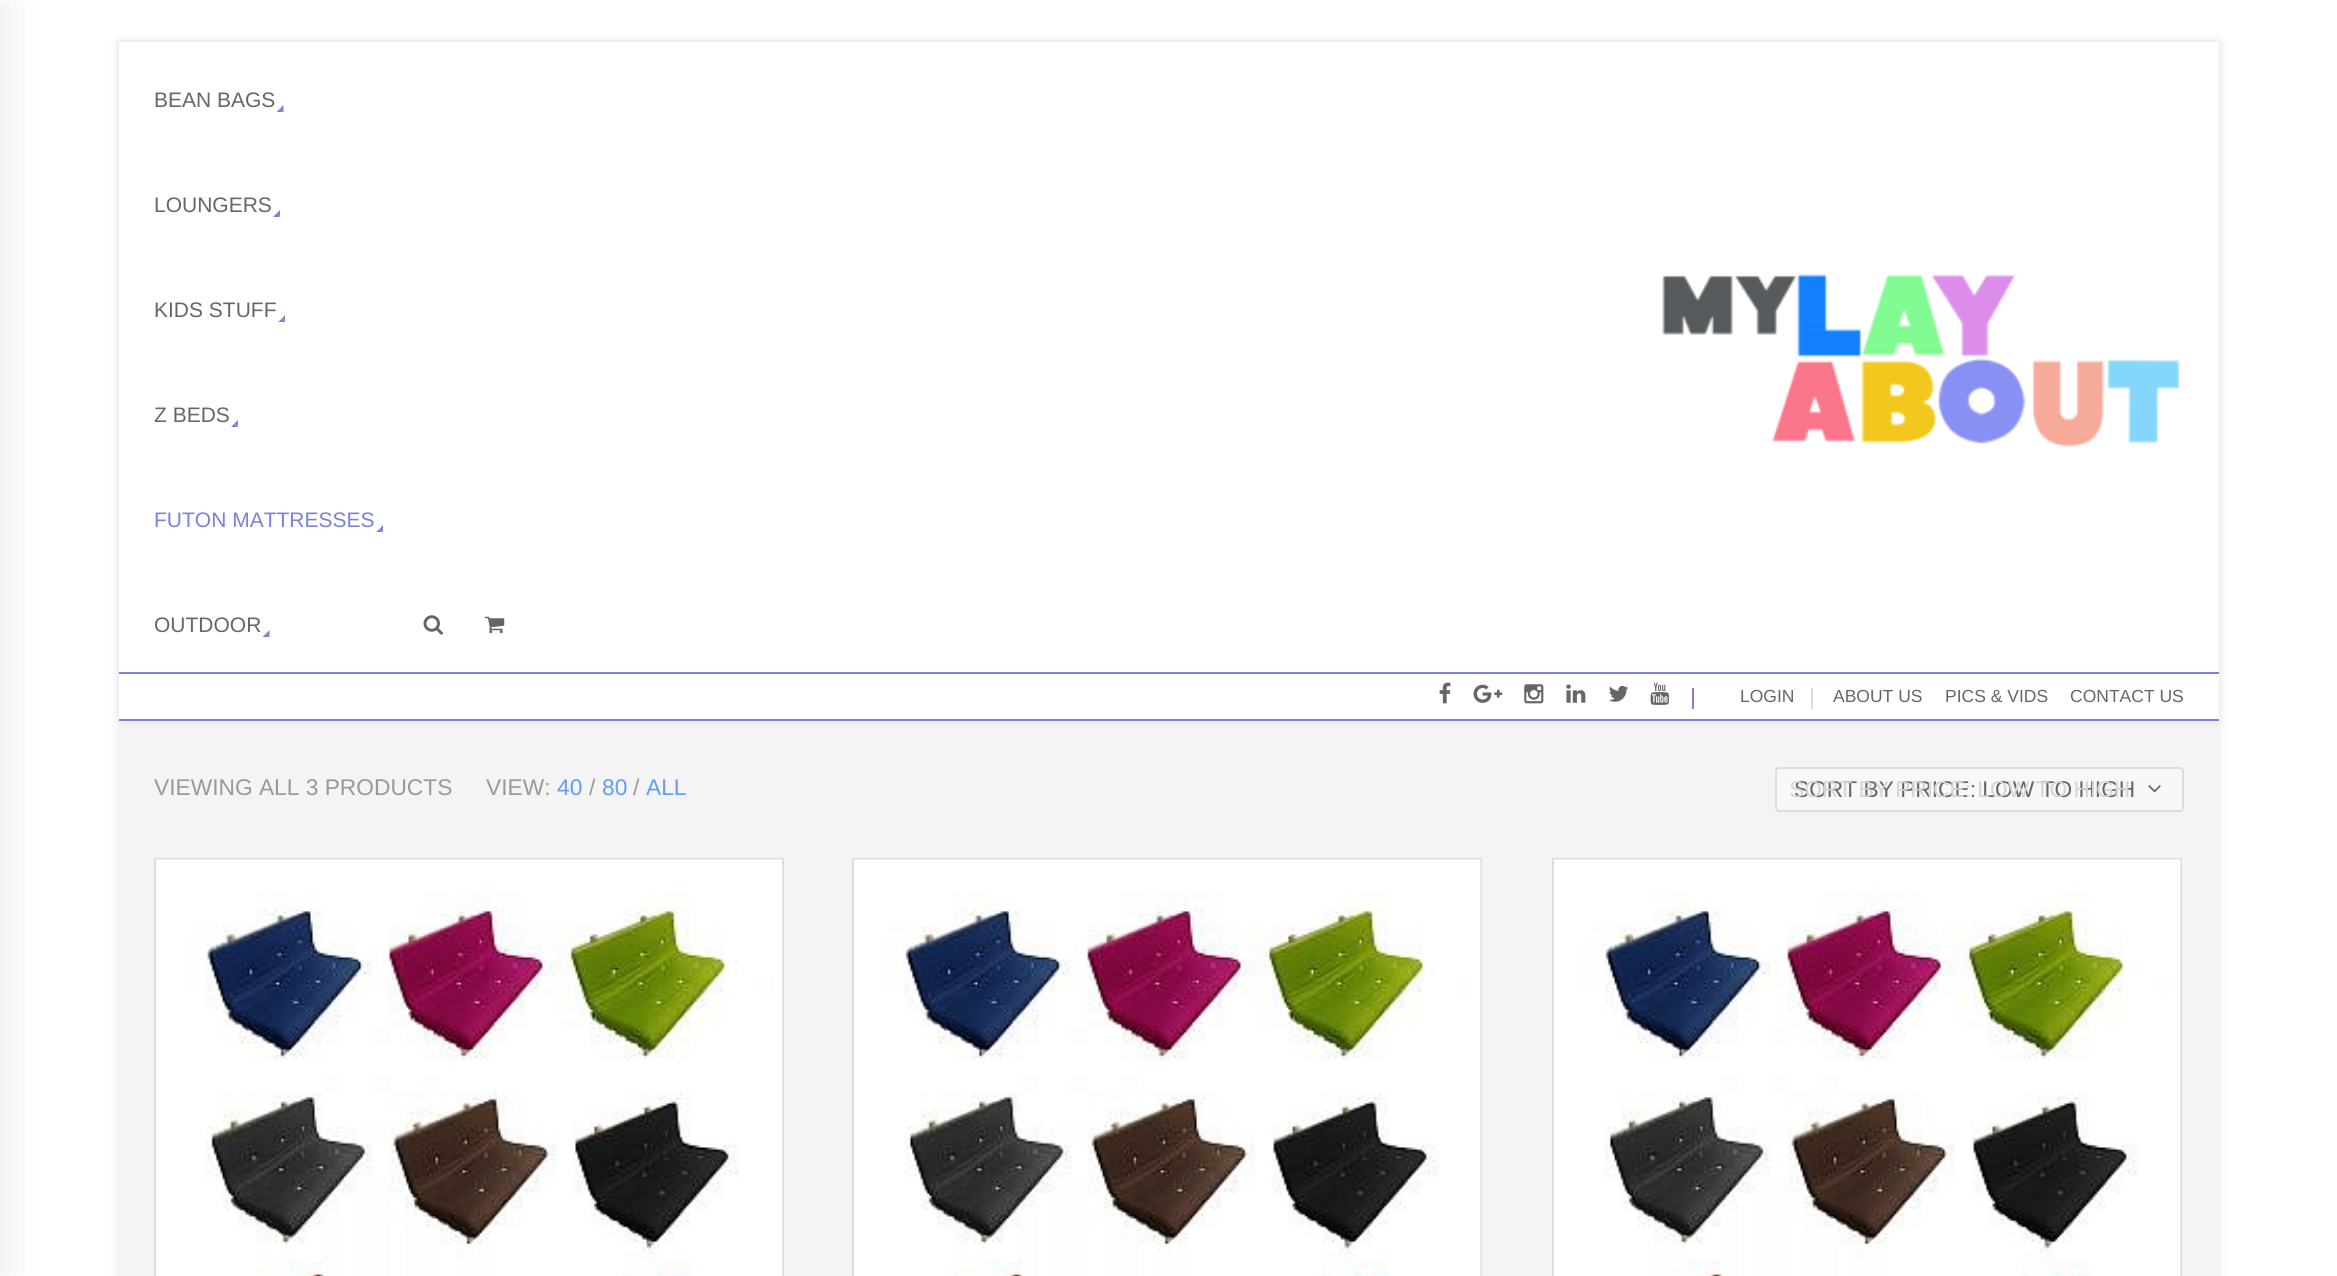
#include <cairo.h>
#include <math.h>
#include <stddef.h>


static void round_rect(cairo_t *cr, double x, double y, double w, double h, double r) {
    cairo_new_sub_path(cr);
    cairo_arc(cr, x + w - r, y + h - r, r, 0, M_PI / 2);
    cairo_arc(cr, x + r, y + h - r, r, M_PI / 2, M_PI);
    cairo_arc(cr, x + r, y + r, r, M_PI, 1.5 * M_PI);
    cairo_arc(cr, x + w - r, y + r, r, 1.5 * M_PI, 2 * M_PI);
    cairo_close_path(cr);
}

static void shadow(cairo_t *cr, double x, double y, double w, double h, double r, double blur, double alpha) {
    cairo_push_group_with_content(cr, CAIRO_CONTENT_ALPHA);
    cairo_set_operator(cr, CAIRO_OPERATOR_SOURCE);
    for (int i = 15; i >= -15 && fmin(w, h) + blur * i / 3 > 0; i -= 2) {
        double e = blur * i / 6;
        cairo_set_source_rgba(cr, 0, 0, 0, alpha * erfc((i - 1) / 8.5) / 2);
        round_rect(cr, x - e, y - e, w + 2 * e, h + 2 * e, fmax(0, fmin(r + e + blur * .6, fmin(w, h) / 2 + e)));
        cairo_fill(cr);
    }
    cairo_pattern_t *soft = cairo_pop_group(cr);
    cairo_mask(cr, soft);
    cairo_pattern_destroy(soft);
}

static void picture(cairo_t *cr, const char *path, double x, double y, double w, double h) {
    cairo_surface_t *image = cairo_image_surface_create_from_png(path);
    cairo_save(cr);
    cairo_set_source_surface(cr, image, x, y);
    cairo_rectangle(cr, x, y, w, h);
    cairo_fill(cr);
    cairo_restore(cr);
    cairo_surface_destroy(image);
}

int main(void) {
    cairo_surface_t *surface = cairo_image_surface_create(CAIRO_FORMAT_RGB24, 2337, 1276);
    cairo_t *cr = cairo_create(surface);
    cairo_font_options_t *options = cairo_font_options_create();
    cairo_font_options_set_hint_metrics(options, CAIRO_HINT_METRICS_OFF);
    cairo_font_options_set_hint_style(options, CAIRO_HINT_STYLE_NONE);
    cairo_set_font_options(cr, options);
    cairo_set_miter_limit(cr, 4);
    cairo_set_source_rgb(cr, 1, 1, 1);
    cairo_paint(cr);
    cairo_set_source_rgb(cr, 0, 0, 0);
    shadow(cr, 119, 42, 2100, 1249, 0, 5, 0.1);
    cairo_set_source_rgb(cr, 0.957, 0.957, 0.957);
    cairo_rectangle(cr, 119, 721, 2100, 555);
    cairo_fill(cr);
    cairo_set_source_rgb(cr, 0, 0, 0);
    shadow(cr, -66, 0, 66, 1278, 0, 22, 0.1);
    shadow(cr, 119, 42, 2100, 679, 0, 4.5, 0.05);
    cairo_set_source_rgb(cr, 1, 1, 1);
    cairo_rectangle(cr, 119, 42, 2100, 630);
    cairo_fill(cr);
    cairo_set_source_rgb(cr, 0.475, 0.51, 0.847);
    cairo_rectangle(cr, 119, 672, 2100, 2);
    cairo_fill(cr);
    cairo_select_font_face(cr, "Liberation Sans", CAIRO_FONT_SLANT_NORMAL, CAIRO_FONT_WEIGHT_NORMAL);
    cairo_set_font_size(cr, 21);
    cairo_set_source_rgb(cr, 0.4, 0.4, 0.4);
    cairo_move_to(cr, 154, 107);
    cairo_show_text(cr, "BEAN BAGS");
    cairo_set_source_rgb(cr, 0.475, 0.51, 0.847);
    cairo_new_path(cr);
    cairo_move_to(cr, 283.5, 105);
    cairo_line_to(cr, 283.5, 112);
    cairo_line_to(cr, 280, 108.5);
    cairo_close_path(cr);
    cairo_fill(cr);
    cairo_new_path(cr);
    cairo_move_to(cr, 283.5, 112);
    cairo_line_to(cr, 276.5, 112);
    cairo_line_to(cr, 280, 108.5);
    cairo_close_path(cr);
    cairo_fill(cr);
    cairo_set_source_rgb(cr, 0.4, 0.4, 0.4);
    cairo_move_to(cr, 154, 212);
    cairo_show_text(cr, "LOUNGERS");
    cairo_set_source_rgb(cr, 0.475, 0.51, 0.847);
    cairo_new_path(cr);
    cairo_move_to(cr, 280, 210);
    cairo_line_to(cr, 280, 217);
    cairo_line_to(cr, 276.5, 213.5);
    cairo_close_path(cr);
    cairo_fill(cr);
    cairo_new_path(cr);
    cairo_move_to(cr, 280, 217);
    cairo_line_to(cr, 273, 217);
    cairo_line_to(cr, 276.5, 213.5);
    cairo_close_path(cr);
    cairo_fill(cr);
    cairo_set_source_rgb(cr, 0.4, 0.4, 0.4);
    cairo_move_to(cr, 154, 317);
    cairo_show_text(cr, "KIDS STUFF");
    cairo_set_source_rgb(cr, 0.475, 0.51, 0.847);
    cairo_new_path(cr);
    cairo_move_to(cr, 285, 315);
    cairo_line_to(cr, 285, 322);
    cairo_line_to(cr, 282, 318.5);
    cairo_close_path(cr);
    cairo_fill(cr);
    cairo_new_path(cr);
    cairo_move_to(cr, 285, 322);
    cairo_line_to(cr, 278, 322);
    cairo_line_to(cr, 282, 318.5);
    cairo_close_path(cr);
    cairo_fill(cr);
    cairo_set_source_rgb(cr, 0.4, 0.4, 0.4);
    cairo_move_to(cr, 154, 422);
    cairo_show_text(cr, "Z BEDS");
    cairo_set_source_rgb(cr, 0.475, 0.51, 0.847);
    cairo_new_path(cr);
    cairo_move_to(cr, 238, 420);
    cairo_line_to(cr, 238, 427);
    cairo_line_to(cr, 234.5, 423.5);
    cairo_close_path(cr);
    cairo_fill(cr);
    cairo_new_path(cr);
    cairo_move_to(cr, 238, 427);
    cairo_line_to(cr, 231, 427);
    cairo_line_to(cr, 234.5, 423.5);
    cairo_close_path(cr);
    cairo_fill(cr);
    cairo_move_to(cr, 154, 527);
    cairo_show_text(cr, "FUTON MATTRESSES");
    cairo_new_path(cr);
    cairo_move_to(cr, 383, 525);
    cairo_line_to(cr, 383, 532);
    cairo_line_to(cr, 380, 528.5);
    cairo_close_path(cr);
    cairo_fill(cr);
    cairo_new_path(cr);
    cairo_move_to(cr, 383, 532);
    cairo_line_to(cr, 376, 532);
    cairo_line_to(cr, 380, 528.5);
    cairo_close_path(cr);
    cairo_fill(cr);
    cairo_set_source_rgb(cr, 0.4, 0.4, 0.4);
    cairo_move_to(cr, 154, 632);
    cairo_show_text(cr, "OUTDOOR");
    cairo_set_source_rgb(cr, 0.475, 0.51, 0.847);
    cairo_new_path(cr);
    cairo_move_to(cr, 269.5, 630);
    cairo_line_to(cr, 269.5, 637);
    cairo_line_to(cr, 266, 633.5);
    cairo_close_path(cr);
    cairo_fill(cr);
    cairo_new_path(cr);
    cairo_move_to(cr, 269.5, 637);
    cairo_line_to(cr, 262.5, 637);
    cairo_line_to(cr, 266, 633.5);
    cairo_close_path(cr);
    cairo_fill(cr);
    picture(cr, "img1.png", 1662, 274, 518, 173);
    picture(cr, "img2.png", 423, 615, 20, 20);
    picture(cr, "img3.png", 484, 616, 21, 18);
    cairo_set_source_rgb(cr, 1, 1, 1);
    cairo_rectangle(cr, 119, 674, 2100, 45);
    cairo_fill(cr);
    cairo_set_source_rgb(cr, 0.475, 0.51, 0.847);
    cairo_rectangle(cr, 119, 719, 2100, 2);
    cairo_fill(cr);
    picture(cr, "img4.png", 1439, 682, 12, 22);
    picture(cr, "img5.png", 1473, 684, 30, 19);
    picture(cr, "img6.png", 1524, 684, 20, 20);
    picture(cr, "img7.png", 1566, 684, 20, 19);
    picture(cr, "img8.png", 1609, 685, 20, 17);
    picture(cr, "img9.png", 1650, 682, 19, 23);
    cairo_rectangle(cr, 1692, 688, 2, 21);
    cairo_fill(cr);
    cairo_set_font_size(cr, 17.5);
    cairo_set_source_rgb(cr, 0.4, 0.4, 0.4);
    cairo_move_to(cr, 1740, 702);
    cairo_show_text(cr, "LOGIN");
    cairo_set_source_rgb(cr, 0.867, 0.867, 0.867);
    cairo_rectangle(cr, 1811, 688, 2, 21);
    cairo_fill(cr);
    cairo_set_source_rgb(cr, 0.4, 0.4, 0.4);
    cairo_move_to(cr, 1833, 702);
    cairo_show_text(cr, "ABOUT US");
    cairo_move_to(cr, 1945, 702);
    cairo_show_text(cr, "PICS & VIDS");
    cairo_move_to(cr, 2070, 702);
    cairo_show_text(cr, "CONTACT US");
    cairo_set_font_size(cr, 22.75);
    cairo_set_source_rgb(cr, 0.6, 0.6, 0.6);
    cairo_move_to(cr, 154, 795);
    cairo_show_text(cr, "VIEWING ALL 3 PRODUCTS");
    cairo_move_to(cr, 486, 795);
    cairo_show_text(cr, "VIEW:");
    cairo_set_source_rgb(cr, 0.376, 0.612, 0.969);
    cairo_move_to(cr, 557, 795);
    cairo_show_text(cr, "40");
    cairo_set_source_rgb(cr, 0.6, 0.6, 0.6);
    cairo_move_to(cr, 589, 795);
    cairo_show_text(cr, "/");
    cairo_set_source_rgb(cr, 0.376, 0.612, 0.969);
    cairo_move_to(cr, 602, 795);
    cairo_show_text(cr, "80");
    cairo_set_source_rgb(cr, 0.6, 0.6, 0.6);
    cairo_move_to(cr, 633, 795);
    cairo_show_text(cr, "/");
    cairo_set_source_rgb(cr, 0.376, 0.612, 0.969);
    cairo_move_to(cr, 646, 795);
    cairo_show_text(cr, "ALL");
    cairo_set_source_rgb(cr, 0.969, 0.969, 0.969);
    round_rect(cr, 1776, 768, 407, 43, 3);
    cairo_fill_preserve(cr);
    cairo_set_source_rgb(cr, 0.867, 0.867, 0.867);
    cairo_stroke(cr);
    picture(cr, "img10.png", 2148, 785, 13, 8);
    cairo_new_path(cr);
    cairo_move_to(cr, 2161.5, 785.5);
    cairo_line_to(cr, 2168.5, 792.5);
    cairo_line_to(cr, 2175.5, 785.5);
    cairo_set_source_rgb(cr, 0.969, 0.969, 0.969);
    cairo_set_line_width(cr, 3.5);
    cairo_stroke(cr);
    cairo_set_source_rgb(cr, 0.4, 0.4, 0.4);
    cairo_move_to(cr, 1794, 797);
    cairo_show_text(cr, "SORT BY PRICE: LOW TO HIGH");
    cairo_set_source_rgb(cr, 0.835, 0.835, 0.835);
    cairo_move_to(cr, 1789, 797);
    cairo_show_text(cr, "SORT BY PRICE: LOW TO HIGH");
    cairo_rectangle(cr, 155, 859, 628, 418);
    cairo_set_source_rgb(cr, 0.867, 0.867, 0.867);
    cairo_set_line_width(cr, 2);
    cairo_stroke(cr);
    picture(cr, "img11.png", 156, 859, 626, 417);
    cairo_set_source_rgb(cr, 0.89, 0.89, 0.89);
    cairo_rectangle(cr, 782, 860, 1, 416);
    cairo_fill(cr);
    cairo_rectangle(cr, 853, 859, 628, 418);
    cairo_set_source_rgb(cr, 0.867, 0.867, 0.867);
    cairo_stroke(cr);
    picture(cr, "img12.png", 854, 859, 627, 417);
    picture(cr, "img13.png", 1480, 859, 1, 417);
    cairo_rectangle(cr, 1553, 859, 628, 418);
    cairo_stroke(cr);
    picture(cr, "img12.png", 1554, 859, 627, 417);
    picture(cr, "img13.png", 2180, 859, 1, 417);
    cairo_surface_write_to_png(surface, "page.png");
    cairo_font_options_destroy(options);
    cairo_destroy(cr);
    cairo_surface_destroy(surface);
    return 0;
}
